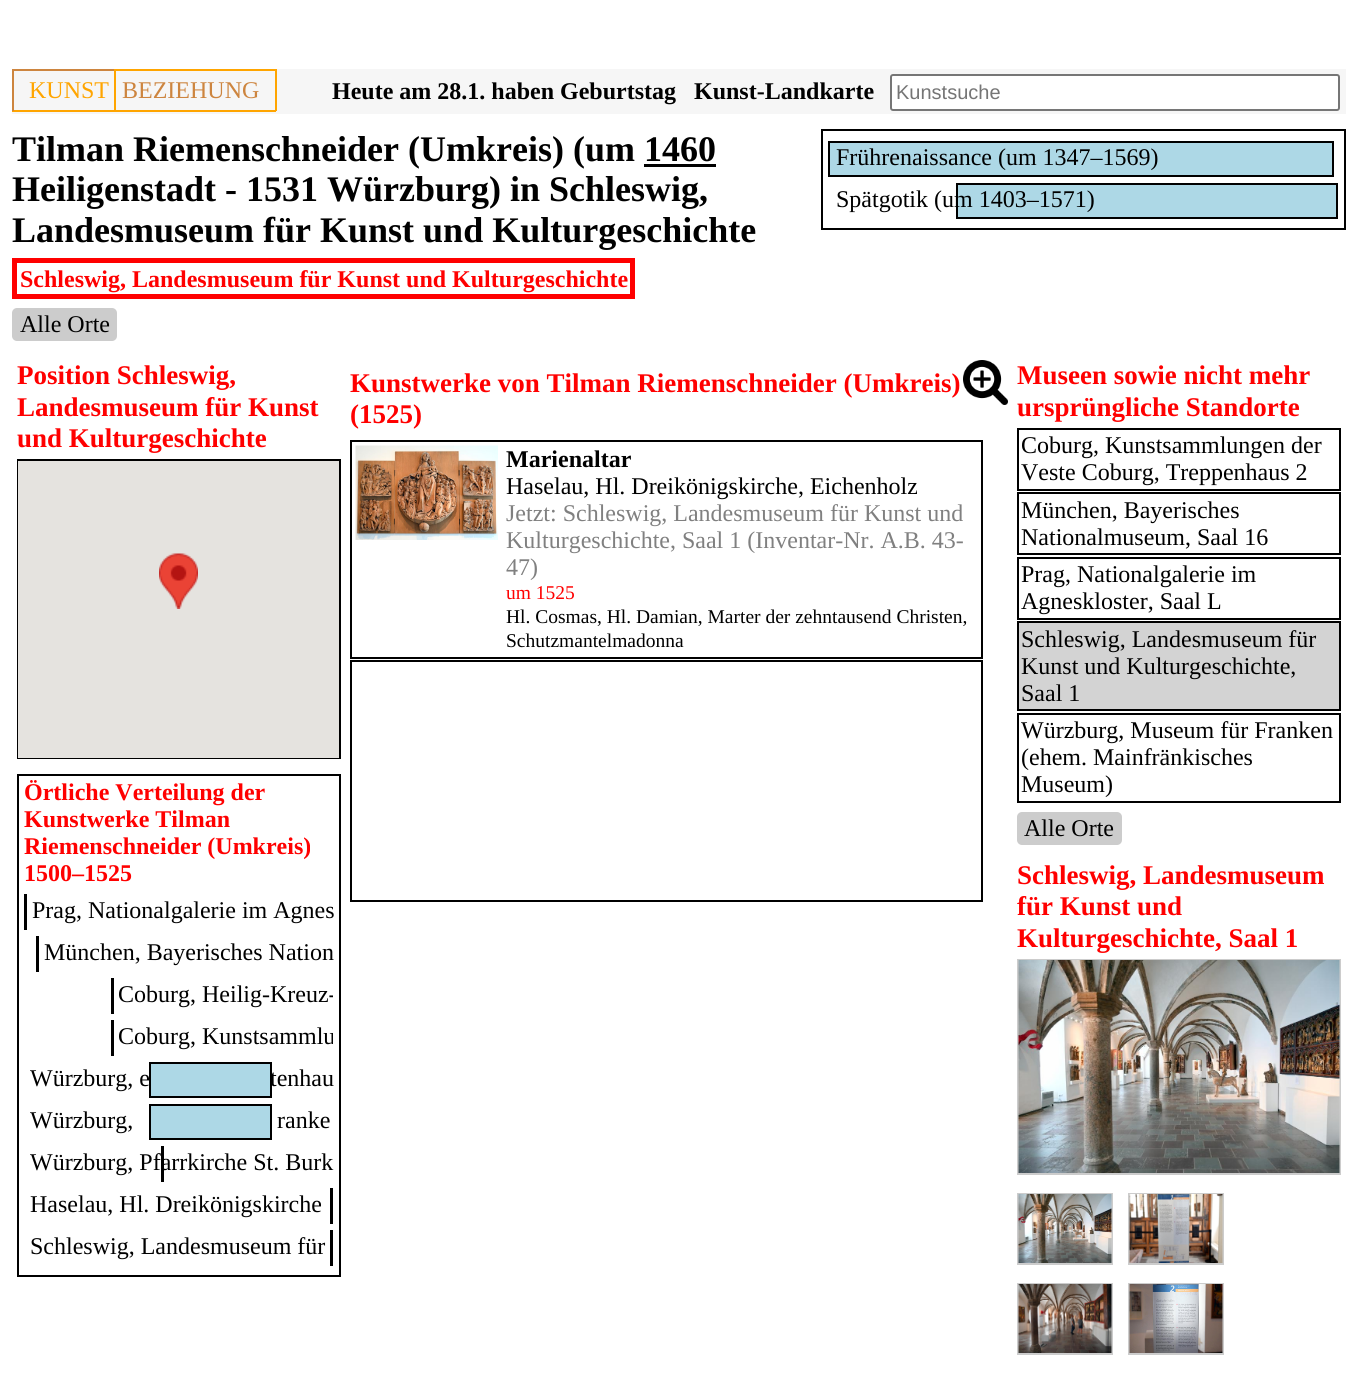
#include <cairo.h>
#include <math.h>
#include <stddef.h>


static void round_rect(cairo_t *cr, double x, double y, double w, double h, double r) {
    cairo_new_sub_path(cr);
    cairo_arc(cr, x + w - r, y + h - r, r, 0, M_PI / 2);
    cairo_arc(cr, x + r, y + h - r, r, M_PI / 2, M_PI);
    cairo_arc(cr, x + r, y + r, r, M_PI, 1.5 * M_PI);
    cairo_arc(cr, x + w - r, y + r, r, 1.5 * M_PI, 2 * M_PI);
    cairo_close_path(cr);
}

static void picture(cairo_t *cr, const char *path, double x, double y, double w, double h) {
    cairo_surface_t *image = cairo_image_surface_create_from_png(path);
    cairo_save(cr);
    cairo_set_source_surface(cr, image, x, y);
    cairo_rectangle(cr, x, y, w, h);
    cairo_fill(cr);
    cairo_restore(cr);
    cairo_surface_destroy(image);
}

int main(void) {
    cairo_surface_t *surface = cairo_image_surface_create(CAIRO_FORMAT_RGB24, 1357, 1397);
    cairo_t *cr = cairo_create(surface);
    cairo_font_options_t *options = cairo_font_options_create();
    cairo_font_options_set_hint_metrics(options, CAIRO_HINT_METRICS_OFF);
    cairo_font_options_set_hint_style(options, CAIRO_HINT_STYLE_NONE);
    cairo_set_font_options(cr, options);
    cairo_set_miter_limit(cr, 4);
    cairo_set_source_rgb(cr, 1, 1, 1);
    cairo_paint(cr);
    cairo_set_source_rgb(cr, 0.961, 0.961, 0.961);
    cairo_rectangle(cr, 12, 69, 1334, 45);
    cairo_fill(cr);
    cairo_set_source_rgb(cr, 0.804, 0.522, 0.247);
    cairo_rectangle(cr, 12, 69, 104, 2);
    cairo_fill(cr);
    cairo_set_source_rgb(cr, 1, 0.647, 0);
    cairo_rectangle(cr, 114, 69, 2, 42);
    cairo_fill(cr);
    cairo_rectangle(cr, 12, 110, 104, 2);
    cairo_fill(cr);
    cairo_set_source_rgb(cr, 0.804, 0.522, 0.247);
    cairo_rectangle(cr, 12, 69, 2, 42);
    cairo_fill(cr);
    cairo_select_font_face(cr, "Liberation Serif", CAIRO_FONT_SLANT_NORMAL, CAIRO_FONT_WEIGHT_NORMAL);
    cairo_set_font_size(cr, 24);
    cairo_set_source_rgb(cr, 1, 0.647, 0);
    cairo_move_to(cr, 29, 98);
    cairo_show_text(cr, "KUNST");
    cairo_rectangle(cr, 116, 69, 160, 2);
    cairo_fill(cr);
    cairo_rectangle(cr, 275, 69, 2, 42);
    cairo_fill(cr);
    cairo_rectangle(cr, 116, 110, 160, 2);
    cairo_fill(cr);
    cairo_set_source_rgb(cr, 0.804, 0.522, 0.247);
    cairo_move_to(cr, 122, 98);
    cairo_show_text(cr, "BEZIEHUNG");
    cairo_select_font_face(cr, "Liberation Serif", CAIRO_FONT_SLANT_NORMAL, CAIRO_FONT_WEIGHT_BOLD);
    cairo_set_source_rgb(cr, 0, 0, 0);
    cairo_move_to(cr, 332, 99);
    cairo_show_text(cr, "Heute am 28.1. haben Geburtstag");
    cairo_move_to(cr, 694, 99);
    cairo_show_text(cr, "Kunst-Landkarte");
    cairo_set_source_rgb(cr, 1, 1, 1);
    round_rect(cr, 891, 75, 448, 35, 2);
    cairo_fill_preserve(cr);
    cairo_set_source_rgb(cr, 0.463, 0.463, 0.463);
    cairo_stroke(cr);
    cairo_select_font_face(cr, "Liberation Sans", CAIRO_FONT_SLANT_NORMAL, CAIRO_FONT_WEIGHT_NORMAL);
    cairo_set_font_size(cr, 20);
    cairo_set_source_rgb(cr, 0.459, 0.459, 0.459);
    cairo_move_to(cr, 896, 99);
    cairo_show_text(cr, "Kunstsuche");
    cairo_select_font_face(cr, "Liberation Serif", CAIRO_FONT_SLANT_NORMAL, CAIRO_FONT_WEIGHT_BOLD);
    cairo_set_font_size(cr, 36);
    cairo_set_source_rgb(cr, 0, 0, 0);
    cairo_move_to(cr, 12, 161);
    cairo_show_text(cr, "Tilman Riemenschneider (Umkreis) (um 1460");
    cairo_rectangle(cr, 644, 164, 72, 3);
    cairo_fill(cr);
    cairo_move_to(cr, 12, 201);
    cairo_show_text(cr, "Heiligenstadt - 1531 Würzburg) in Schleswig,");
    cairo_move_to(cr, 12, 242);
    cairo_show_text(cr, "Landesmuseum für Kunst und Kulturgeschichte");
    cairo_rectangle(cr, 822, 130, 523, 99);
    cairo_stroke(cr);
    cairo_set_source_rgb(cr, 0.678, 0.847, 0.902);
    cairo_rectangle(cr, 829, 142, 504, 34);
    cairo_fill_preserve(cr);
    cairo_set_source_rgb(cr, 0, 0, 0);
    cairo_stroke(cr);
    cairo_select_font_face(cr, "Liberation Serif", CAIRO_FONT_SLANT_NORMAL, CAIRO_FONT_WEIGHT_NORMAL);
    cairo_set_font_size(cr, 24);
    cairo_move_to(cr, 836, 165);
    cairo_show_text(cr, "Frührenaissance (um 1347–1569)");
    cairo_set_source_rgb(cr, 0.678, 0.847, 0.902);
    cairo_rectangle(cr, 957, 184, 380, 34);
    cairo_fill_preserve(cr);
    cairo_set_source_rgb(cr, 0, 0, 0);
    cairo_stroke(cr);
    cairo_move_to(cr, 836, 207);
    cairo_show_text(cr, "Spätgotik (um 1403–1571)");
    cairo_rectangle(cr, 14.5, 260.5, 618, 36);
    cairo_set_source_rgb(cr, 1, 0, 0);
    cairo_set_line_width(cr, 5);
    cairo_stroke(cr);
    cairo_select_font_face(cr, "Liberation Serif", CAIRO_FONT_SLANT_NORMAL, CAIRO_FONT_WEIGHT_BOLD);
    cairo_move_to(cr, 20, 287);
    cairo_show_text(cr, "Schleswig, Landesmuseum für Kunst und Kulturgeschichte");
    cairo_set_source_rgb(cr, 0.8, 0.8, 0.8);
    round_rect(cr, 12, 308, 105, 33, 5);
    cairo_fill(cr);
    cairo_select_font_face(cr, "Liberation Serif", CAIRO_FONT_SLANT_NORMAL, CAIRO_FONT_WEIGHT_NORMAL);
    cairo_set_source_rgb(cr, 0, 0, 0);
    cairo_move_to(cr, 20, 332);
    cairo_show_text(cr, "Alle Orte");
    cairo_select_font_face(cr, "Liberation Serif", CAIRO_FONT_SLANT_NORMAL, CAIRO_FONT_WEIGHT_BOLD);
    cairo_set_font_size(cr, 27);
    cairo_set_source_rgb(cr, 1, 0, 0);
    cairo_move_to(cr, 17, 384);
    cairo_show_text(cr, "Position Schleswig,");
    cairo_move_to(cr, 17, 416);
    cairo_show_text(cr, "Landesmuseum für Kunst");
    cairo_move_to(cr, 17, 447);
    cairo_show_text(cr, "und Kulturgeschichte");
    cairo_rectangle(cr, 18, 460, 322, 298);
    cairo_set_source_rgb(cr, 0, 0, 0);
    cairo_set_line_width(cr, 2);
    cairo_stroke(cr);
    cairo_set_source_rgb(cr, 0.898, 0.89, 0.875);
    cairo_rectangle(cr, 18, 461, 321, 297);
    cairo_fill(cr);
    picture(cr, "img1.png", 159, 553, 39, 56);
    cairo_rectangle(cr, 18, 775, 322, 501);
    cairo_set_source_rgb(cr, 0, 0, 0);
    cairo_stroke(cr);
    cairo_set_font_size(cr, 24);
    cairo_set_source_rgb(cr, 1, 0, 0);
    cairo_move_to(cr, 24, 800);
    cairo_show_text(cr, "Örtliche Verteilung der");
    cairo_move_to(cr, 24, 827);
    cairo_show_text(cr, "Kunstwerke Tilman");
    cairo_move_to(cr, 24, 854);
    cairo_show_text(cr, "Riemenschneider (Umkreis)");
    cairo_move_to(cr, 24, 881);
    cairo_show_text(cr, "1500–1525");
    cairo_set_source_rgb(cr, 0, 0, 0);
    cairo_rectangle(cr, 24, 894, 3, 36);
    cairo_fill(cr);
    cairo_select_font_face(cr, "Liberation Serif", CAIRO_FONT_SLANT_NORMAL, CAIRO_FONT_WEIGHT_NORMAL);
    cairo_move_to(cr, 32, 918);
    cairo_show_text(cr, "Prag, Nationalgalerie im Agnes");
    cairo_rectangle(cr, 36, 936, 3, 36);
    cairo_fill(cr);
    cairo_move_to(cr, 44, 960);
    cairo_show_text(cr, "München, Bayerisches Nation");
    cairo_rectangle(cr, 111, 978, 3, 36);
    cairo_fill(cr);
    cairo_save(cr);
    cairo_rectangle(cr, 24, 894, 309, 378);
    cairo_clip(cr);
    cairo_move_to(cr, 118, 1002);
    cairo_show_text(cr, "Coburg, Heilig-Kreuz-");
    cairo_restore(cr);
    cairo_rectangle(cr, 111, 1020, 3, 36);
    cairo_fill(cr);
    cairo_save(cr);
    cairo_rectangle(cr, 24, 894, 309, 378);
    cairo_clip(cr);
    cairo_move_to(cr, 118, 1044);
    cairo_show_text(cr, "Coburg, Kunstsammlu");
    cairo_restore(cr);
    cairo_move_to(cr, 30, 1086);
    cairo_show_text(cr, "Würzburg, e");
    cairo_move_to(cr, 270, 1086);
    cairo_show_text(cr, "tenhau");
    cairo_set_source_rgb(cr, 0.678, 0.847, 0.902);
    cairo_rectangle(cr, 150, 1063, 121, 34);
    cairo_fill_preserve(cr);
    cairo_set_source_rgb(cr, 0, 0, 0);
    cairo_stroke(cr);
    cairo_set_source_rgb(cr, 0.678, 0.847, 0.902);
    cairo_rectangle(cr, 150, 1105, 121, 34);
    cairo_fill_preserve(cr);
    cairo_set_source_rgb(cr, 0, 0, 0);
    cairo_stroke(cr);
    cairo_move_to(cr, 30, 1128);
    cairo_show_text(cr, "Würzburg,");
    cairo_move_to(cr, 277, 1128);
    cairo_show_text(cr, "ranke");
    cairo_rectangle(cr, 161, 1146, 3, 36);
    cairo_fill(cr);
    cairo_move_to(cr, 30, 1170);
    cairo_show_text(cr, "Würzburg, Pfarrkirche St. Burk");
    cairo_move_to(cr, 30, 1212);
    cairo_show_text(cr, "Haselau, Hl. Dreikönigskirche");
    cairo_rectangle(cr, 330, 1188, 3, 36);
    cairo_fill(cr);
    cairo_move_to(cr, 30, 1254);
    cairo_show_text(cr, "Schleswig, Landesmuseum für");
    cairo_rectangle(cr, 330, 1230, 3, 36);
    cairo_fill(cr);
    cairo_select_font_face(cr, "Liberation Serif", CAIRO_FONT_SLANT_NORMAL, CAIRO_FONT_WEIGHT_BOLD);
    cairo_set_font_size(cr, 27);
    cairo_set_source_rgb(cr, 1, 0, 0);
    cairo_move_to(cr, 350, 392);
    cairo_show_text(cr, "Kunstwerke von Tilman Riemenschneider (Umkreis)");
    cairo_move_to(cr, 350, 423);
    cairo_show_text(cr, "(1525)");
    picture(cr, "img2.png", 963, 360, 45, 45);
    cairo_rectangle(cr, 351, 441, 631, 217);
    cairo_set_source_rgb(cr, 0, 0, 0);
    cairo_stroke(cr);
    picture(cr, "img3.png", 355, 445, 143, 95);
    cairo_set_font_size(cr, 24);
    cairo_move_to(cr, 506, 467);
    cairo_show_text(cr, "Marienaltar");
    cairo_select_font_face(cr, "Liberation Serif", CAIRO_FONT_SLANT_NORMAL, CAIRO_FONT_WEIGHT_NORMAL);
    cairo_move_to(cr, 506, 494);
    cairo_show_text(cr, "Haselau, Hl. Dreikönigskirche, Eichenholz");
    cairo_set_source_rgb(cr, 0.502, 0.502, 0.502);
    cairo_move_to(cr, 506, 521);
    cairo_show_text(cr, "Jetzt: Schleswig, Landesmuseum für Kunst und");
    cairo_move_to(cr, 506, 548);
    cairo_show_text(cr, "Kulturgeschichte, Saal 1 (Inventar-Nr. A.B. 43-");
    cairo_move_to(cr, 506, 575);
    cairo_show_text(cr, "47)");
    cairo_set_font_size(cr, 19.5);
    cairo_set_source_rgb(cr, 1, 0, 0);
    cairo_move_to(cr, 506, 599);
    cairo_show_text(cr, "um 1525");
    cairo_set_source_rgb(cr, 0, 0, 0);
    cairo_move_to(cr, 506, 623);
    cairo_show_text(cr, "Hl. Cosmas, Hl. Damian, Marter der zehntausend Christen,");
    cairo_move_to(cr, 506, 647);
    cairo_show_text(cr, "Schutzmantelmadonna");
    cairo_rectangle(cr, 351, 661, 631, 240);
    cairo_stroke(cr);
    cairo_select_font_face(cr, "Liberation Serif", CAIRO_FONT_SLANT_NORMAL, CAIRO_FONT_WEIGHT_BOLD);
    cairo_set_font_size(cr, 27);
    cairo_set_source_rgb(cr, 1, 0, 0);
    cairo_move_to(cr, 1017, 384);
    cairo_show_text(cr, "Museen sowie nicht mehr");
    cairo_move_to(cr, 1017, 416);
    cairo_show_text(cr, "ursprüngliche Standorte");
    cairo_rectangle(cr, 1018, 429, 322, 61);
    cairo_set_source_rgb(cr, 0, 0, 0);
    cairo_stroke(cr);
    cairo_select_font_face(cr, "Liberation Serif", CAIRO_FONT_SLANT_NORMAL, CAIRO_FONT_WEIGHT_NORMAL);
    cairo_set_font_size(cr, 24);
    cairo_move_to(cr, 1021, 453);
    cairo_show_text(cr, "Coburg, Kunstsammlungen der");
    cairo_move_to(cr, 1021, 480);
    cairo_show_text(cr, "Veste Coburg, Treppenhaus 2");
    cairo_rectangle(cr, 1018, 493, 322, 61);
    cairo_stroke(cr);
    cairo_move_to(cr, 1021, 518);
    cairo_show_text(cr, "München, Bayerisches");
    cairo_move_to(cr, 1021, 545);
    cairo_show_text(cr, "Nationalmuseum, Saal 16");
    cairo_rectangle(cr, 1018, 558, 322, 61);
    cairo_stroke(cr);
    cairo_move_to(cr, 1021, 582);
    cairo_show_text(cr, "Prag, Nationalgalerie im");
    cairo_move_to(cr, 1021, 609);
    cairo_show_text(cr, "Agneskloster, Saal L");
    cairo_set_source_rgb(cr, 0.827, 0.827, 0.827);
    cairo_rectangle(cr, 1018, 622, 322, 88);
    cairo_fill_preserve(cr);
    cairo_set_source_rgb(cr, 0, 0, 0);
    cairo_stroke(cr);
    cairo_move_to(cr, 1021, 647);
    cairo_show_text(cr, "Schleswig, Landesmuseum für");
    cairo_move_to(cr, 1021, 674);
    cairo_show_text(cr, "Kunst und Kulturgeschichte,");
    cairo_move_to(cr, 1021, 701);
    cairo_show_text(cr, "Saal 1");
    cairo_rectangle(cr, 1018, 714, 322, 88);
    cairo_stroke(cr);
    cairo_move_to(cr, 1021, 738);
    cairo_show_text(cr, "Würzburg, Museum für Franken");
    cairo_move_to(cr, 1021, 765);
    cairo_show_text(cr, "(ehem. Mainfränkisches");
    cairo_move_to(cr, 1021, 792);
    cairo_show_text(cr, "Museum)");
    cairo_set_source_rgb(cr, 0.8, 0.8, 0.8);
    round_rect(cr, 1017, 812, 105, 33, 5);
    cairo_fill(cr);
    cairo_set_source_rgb(cr, 0, 0, 0);
    cairo_move_to(cr, 1024, 836);
    cairo_show_text(cr, "Alle Orte");
    cairo_select_font_face(cr, "Liberation Serif", CAIRO_FONT_SLANT_NORMAL, CAIRO_FONT_WEIGHT_BOLD);
    cairo_set_font_size(cr, 27);
    cairo_set_source_rgb(cr, 1, 0, 0);
    cairo_move_to(cr, 1017, 884);
    cairo_show_text(cr, "Schleswig, Landesmuseum");
    cairo_move_to(cr, 1017, 915);
    cairo_show_text(cr, "für Kunst und");
    cairo_move_to(cr, 1017, 947);
    cairo_show_text(cr, "Kulturgeschichte, Saal 1");
    cairo_rectangle(cr, 1018, 960, 322, 214);
    cairo_set_source_rgb(cr, 0.8, 0.8, 0.8);
    cairo_stroke(cr);
    picture(cr, "img4.png", 1018, 960, 322, 213);
    cairo_rectangle(cr, 1018, 1194, 94, 70);
    cairo_stroke(cr);
    picture(cr, "img5.png", 1018, 1194, 94, 69);
    cairo_rectangle(cr, 1129, 1194, 94, 70);
    cairo_stroke(cr);
    picture(cr, "img6.png", 1129, 1194, 94, 69);
    cairo_rectangle(cr, 1018, 1284, 94, 70);
    cairo_stroke(cr);
    picture(cr, "img7.png", 1018, 1284, 94, 69);
    cairo_rectangle(cr, 1129, 1284, 94, 70);
    cairo_stroke(cr);
    picture(cr, "img8.png", 1129, 1284, 94, 69);
    cairo_surface_write_to_png(surface, "page.png");
    cairo_font_options_destroy(options);
    cairo_destroy(cr);
    cairo_surface_destroy(surface);
    return 0;
}
